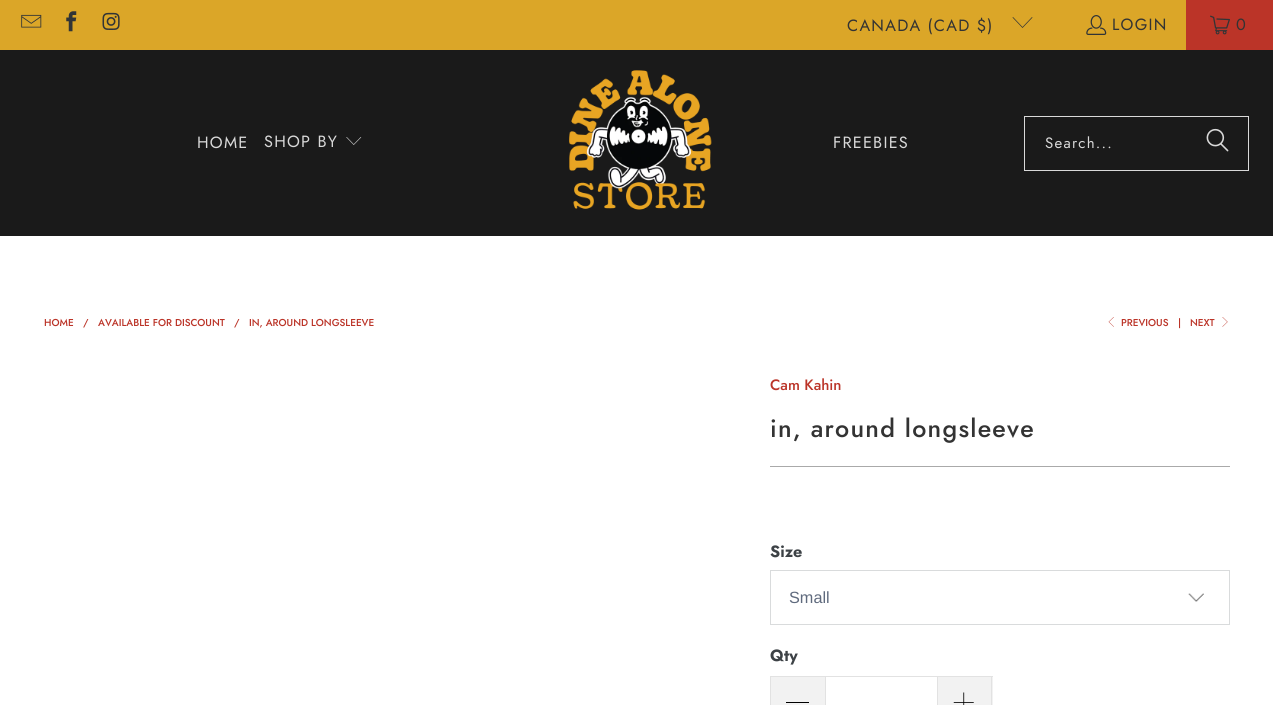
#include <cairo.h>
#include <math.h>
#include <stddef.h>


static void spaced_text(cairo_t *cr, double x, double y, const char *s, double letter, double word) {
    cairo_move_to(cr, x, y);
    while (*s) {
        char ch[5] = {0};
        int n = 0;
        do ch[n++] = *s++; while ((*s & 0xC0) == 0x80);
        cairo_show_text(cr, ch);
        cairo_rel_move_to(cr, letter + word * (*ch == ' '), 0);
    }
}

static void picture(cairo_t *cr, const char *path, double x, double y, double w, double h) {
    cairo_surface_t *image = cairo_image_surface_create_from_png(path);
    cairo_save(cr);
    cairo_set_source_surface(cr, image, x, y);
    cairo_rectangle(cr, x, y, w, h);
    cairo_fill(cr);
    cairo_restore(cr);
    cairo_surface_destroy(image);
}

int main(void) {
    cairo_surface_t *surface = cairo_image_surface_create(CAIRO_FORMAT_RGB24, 1273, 705);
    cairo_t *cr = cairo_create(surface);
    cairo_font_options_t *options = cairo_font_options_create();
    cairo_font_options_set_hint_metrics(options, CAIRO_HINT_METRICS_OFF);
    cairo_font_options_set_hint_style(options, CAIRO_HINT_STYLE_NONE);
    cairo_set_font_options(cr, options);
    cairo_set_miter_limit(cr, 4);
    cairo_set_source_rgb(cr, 1, 1, 1);
    cairo_paint(cr);
    cairo_set_source_rgb(cr, 0.859, 0.651, 0.157);
    cairo_rectangle(cr, 0, 0, 1186, 50);
    cairo_fill(cr);
    picture(cr, "img1.png", 21, 14, 21, 14);
    picture(cr, "img2.png", 66, 11, 11, 21);
    picture(cr, "img3.png", 102, 12, 18, 18);
    cairo_select_font_face(cr, "Jost", CAIRO_FONT_SLANT_NORMAL, CAIRO_FONT_WEIGHT_NORMAL);
    cairo_set_font_size(cr, 16.25);
    cairo_set_source_rgb(cr, 0.2, 0.2, 0.2);
    spaced_text(cr, 847, 31, "CANADA (CAD $)", 1.25, 0);
    cairo_set_source_rgb(cr, 0.192, 0.204, 0.212);
    cairo_new_path(cr);
    cairo_move_to(cr, 1022.5, 28);
    cairo_line_to(cr, 1012.5, 17.5);
    cairo_line_to(cr, 1013, 17);
    cairo_line_to(cr, 1022.5, 27);
    cairo_line_to(cr, 1032, 17);
    cairo_line_to(cr, 1032.5, 17.5);
    cairo_close_path(cr);
    cairo_fill(cr);
    picture(cr, "img4.png", 1086, 15, 21, 20);
    cairo_set_source_rgb(cr, 0.2, 0.2, 0.2);
    spaced_text(cr, 1112, 30, "LOGIN", 1.25, 0);
    cairo_set_source_rgb(cr, 0.733, 0.204, 0.157);
    cairo_rectangle(cr, 1186, 0, 87, 50);
    cairo_fill(cr);
    picture(cr, "img5.png", 1210, 15, 20, 20);
    cairo_set_source_rgb(cr, 0.2, 0.2, 0.2);
    spaced_text(cr, 1236, 30, "0", 1.25, 0);
    cairo_set_source_rgb(cr, 0.102, 0.102, 0.102);
    cairo_rectangle(cr, 0, 50, 1273, 186);
    cairo_fill(cr);
    cairo_set_source_rgb(cr, 0.851, 0.851, 0.851);
    spaced_text(cr, 197, 148, "HOME", 1.25, 0);
    spaced_text(cr, 264, 147, "SHOP BY", 1.25, 0);
    picture(cr, "img6.png", 346, 137, 16, 8);
    picture(cr, "img7.png", 569, 70, 143, 140);
    spaced_text(cr, 833, 148, "FREEBIES", 1.25, 0);
    cairo_rectangle(cr, 1024.5, 116.5, 224, 54);
    cairo_set_line_width(cr, 1);
    cairo_stroke(cr);
    cairo_set_font_size(cr, 15);
    spaced_text(cr, 1045, 148, "Search...", 1.25, 0);
    picture(cr, "img8.png", 1206, 128, 23, 24);
    cairo_select_font_face(cr, "Jost Medium", CAIRO_FONT_SLANT_NORMAL, CAIRO_FONT_WEIGHT_NORMAL);
    cairo_set_font_size(cr, 10);
    cairo_set_source_rgb(cr, 0.733, 0.204, 0.157);
    cairo_move_to(cr, 44, 326);
    cairo_show_text(cr, "HOME");
    cairo_move_to(cr, 83, 326);
    cairo_show_text(cr, "/");
    cairo_move_to(cr, 98, 326);
    cairo_show_text(cr, "AVAILABLE FOR DISCOUNT");
    cairo_move_to(cr, 234, 326);
    cairo_show_text(cr, "/");
    cairo_move_to(cr, 249, 326);
    cairo_show_text(cr, "IN, AROUND LONGSLEEVE");
    picture(cr, "img9.png", 1108, 317, 6, 10);
    cairo_move_to(cr, 1121, 326);
    cairo_show_text(cr, "PREVIOUS");
    cairo_move_to(cr, 1178, 326);
    cairo_show_text(cr, "|");
    cairo_move_to(cr, 1190, 326);
    cairo_show_text(cr, "NEXT");
    picture(cr, "img10.png", 1222, 317, 6, 10);
    cairo_set_font_size(cr, 15);
    cairo_move_to(cr, 770, 390);
    cairo_show_text(cr, "Cam Kahin");
    cairo_set_font_size(cr, 25);
    cairo_set_source_rgb(cr, 0.2, 0.2, 0.2);
    spaced_text(cr, 770, 437, "in, around longsleeve", 1.25, 0);
    cairo_set_source_rgb(cr, 0.667, 0.667, 0.667);
    cairo_rectangle(cr, 770, 466, 460, 1);
    cairo_fill(cr);
    cairo_select_font_face(cr, "Jost", CAIRO_FONT_SLANT_NORMAL, CAIRO_FONT_WEIGHT_BOLD);
    cairo_set_font_size(cr, 16.25);
    cairo_set_source_rgb(cr, 0.239, 0.259, 0.275);
    cairo_move_to(cr, 770, 557);
    cairo_show_text(cr, "Size");
    picture(cr, "img11.png", 1188, 593, 16, 9);
    cairo_rectangle(cr, 770.5, 570.5, 459, 54);
    cairo_set_source_rgb(cr, 0.851, 0.859, 0.863);
    cairo_stroke(cr);
    cairo_select_font_face(cr, "Liberation Sans", CAIRO_FONT_SLANT_NORMAL, CAIRO_FONT_WEIGHT_NORMAL);
    cairo_set_source_rgb(cr, 0.373, 0.416, 0.49);
    cairo_move_to(cr, 789, 603);
    cairo_show_text(cr, "Small");
    cairo_select_font_face(cr, "Jost", CAIRO_FONT_SLANT_NORMAL, CAIRO_FONT_WEIGHT_BOLD);
    cairo_set_source_rgb(cr, 0.239, 0.259, 0.275);
    cairo_move_to(cr, 770, 661);
    cairo_show_text(cr, "Qty");
    cairo_set_source_rgb(cr, 0.949, 0.949, 0.949);
    cairo_rectangle(cr, 771, 677, 54, 28);
    cairo_fill(cr);
    cairo_set_source_rgb(cr, 0.886, 0.886, 0.886);
    cairo_rectangle(cr, 770, 676, 55, 1);
    cairo_fill(cr);
    cairo_rectangle(cr, 770, 676, 1, 29);
    cairo_fill(cr);
    cairo_set_source_rgb(cr, 0, 0, 0);
    cairo_rectangle(cr, 786, 702, 23, 1);
    cairo_fill(cr);
    cairo_rectangle(cr, 825.5, 676.5, 112, 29);
    cairo_set_source_rgb(cr, 0.886, 0.886, 0.886);
    cairo_stroke(cr);
    cairo_set_source_rgb(cr, 0.949, 0.949, 0.949);
    cairo_rectangle(cr, 938, 677, 55, 28);
    cairo_fill(cr);
    cairo_set_source_rgb(cr, 0.886, 0.886, 0.886);
    cairo_rectangle(cr, 938, 676, 55, 1);
    cairo_fill(cr);
    cairo_rectangle(cr, 991, 676, 1, 29);
    cairo_fill(cr);
    picture(cr, "img12.png", 953, 692, 21, 13);
    cairo_surface_write_to_png(surface, "page.png");
    cairo_font_options_destroy(options);
    cairo_destroy(cr);
    cairo_surface_destroy(surface);
    return 0;
}
